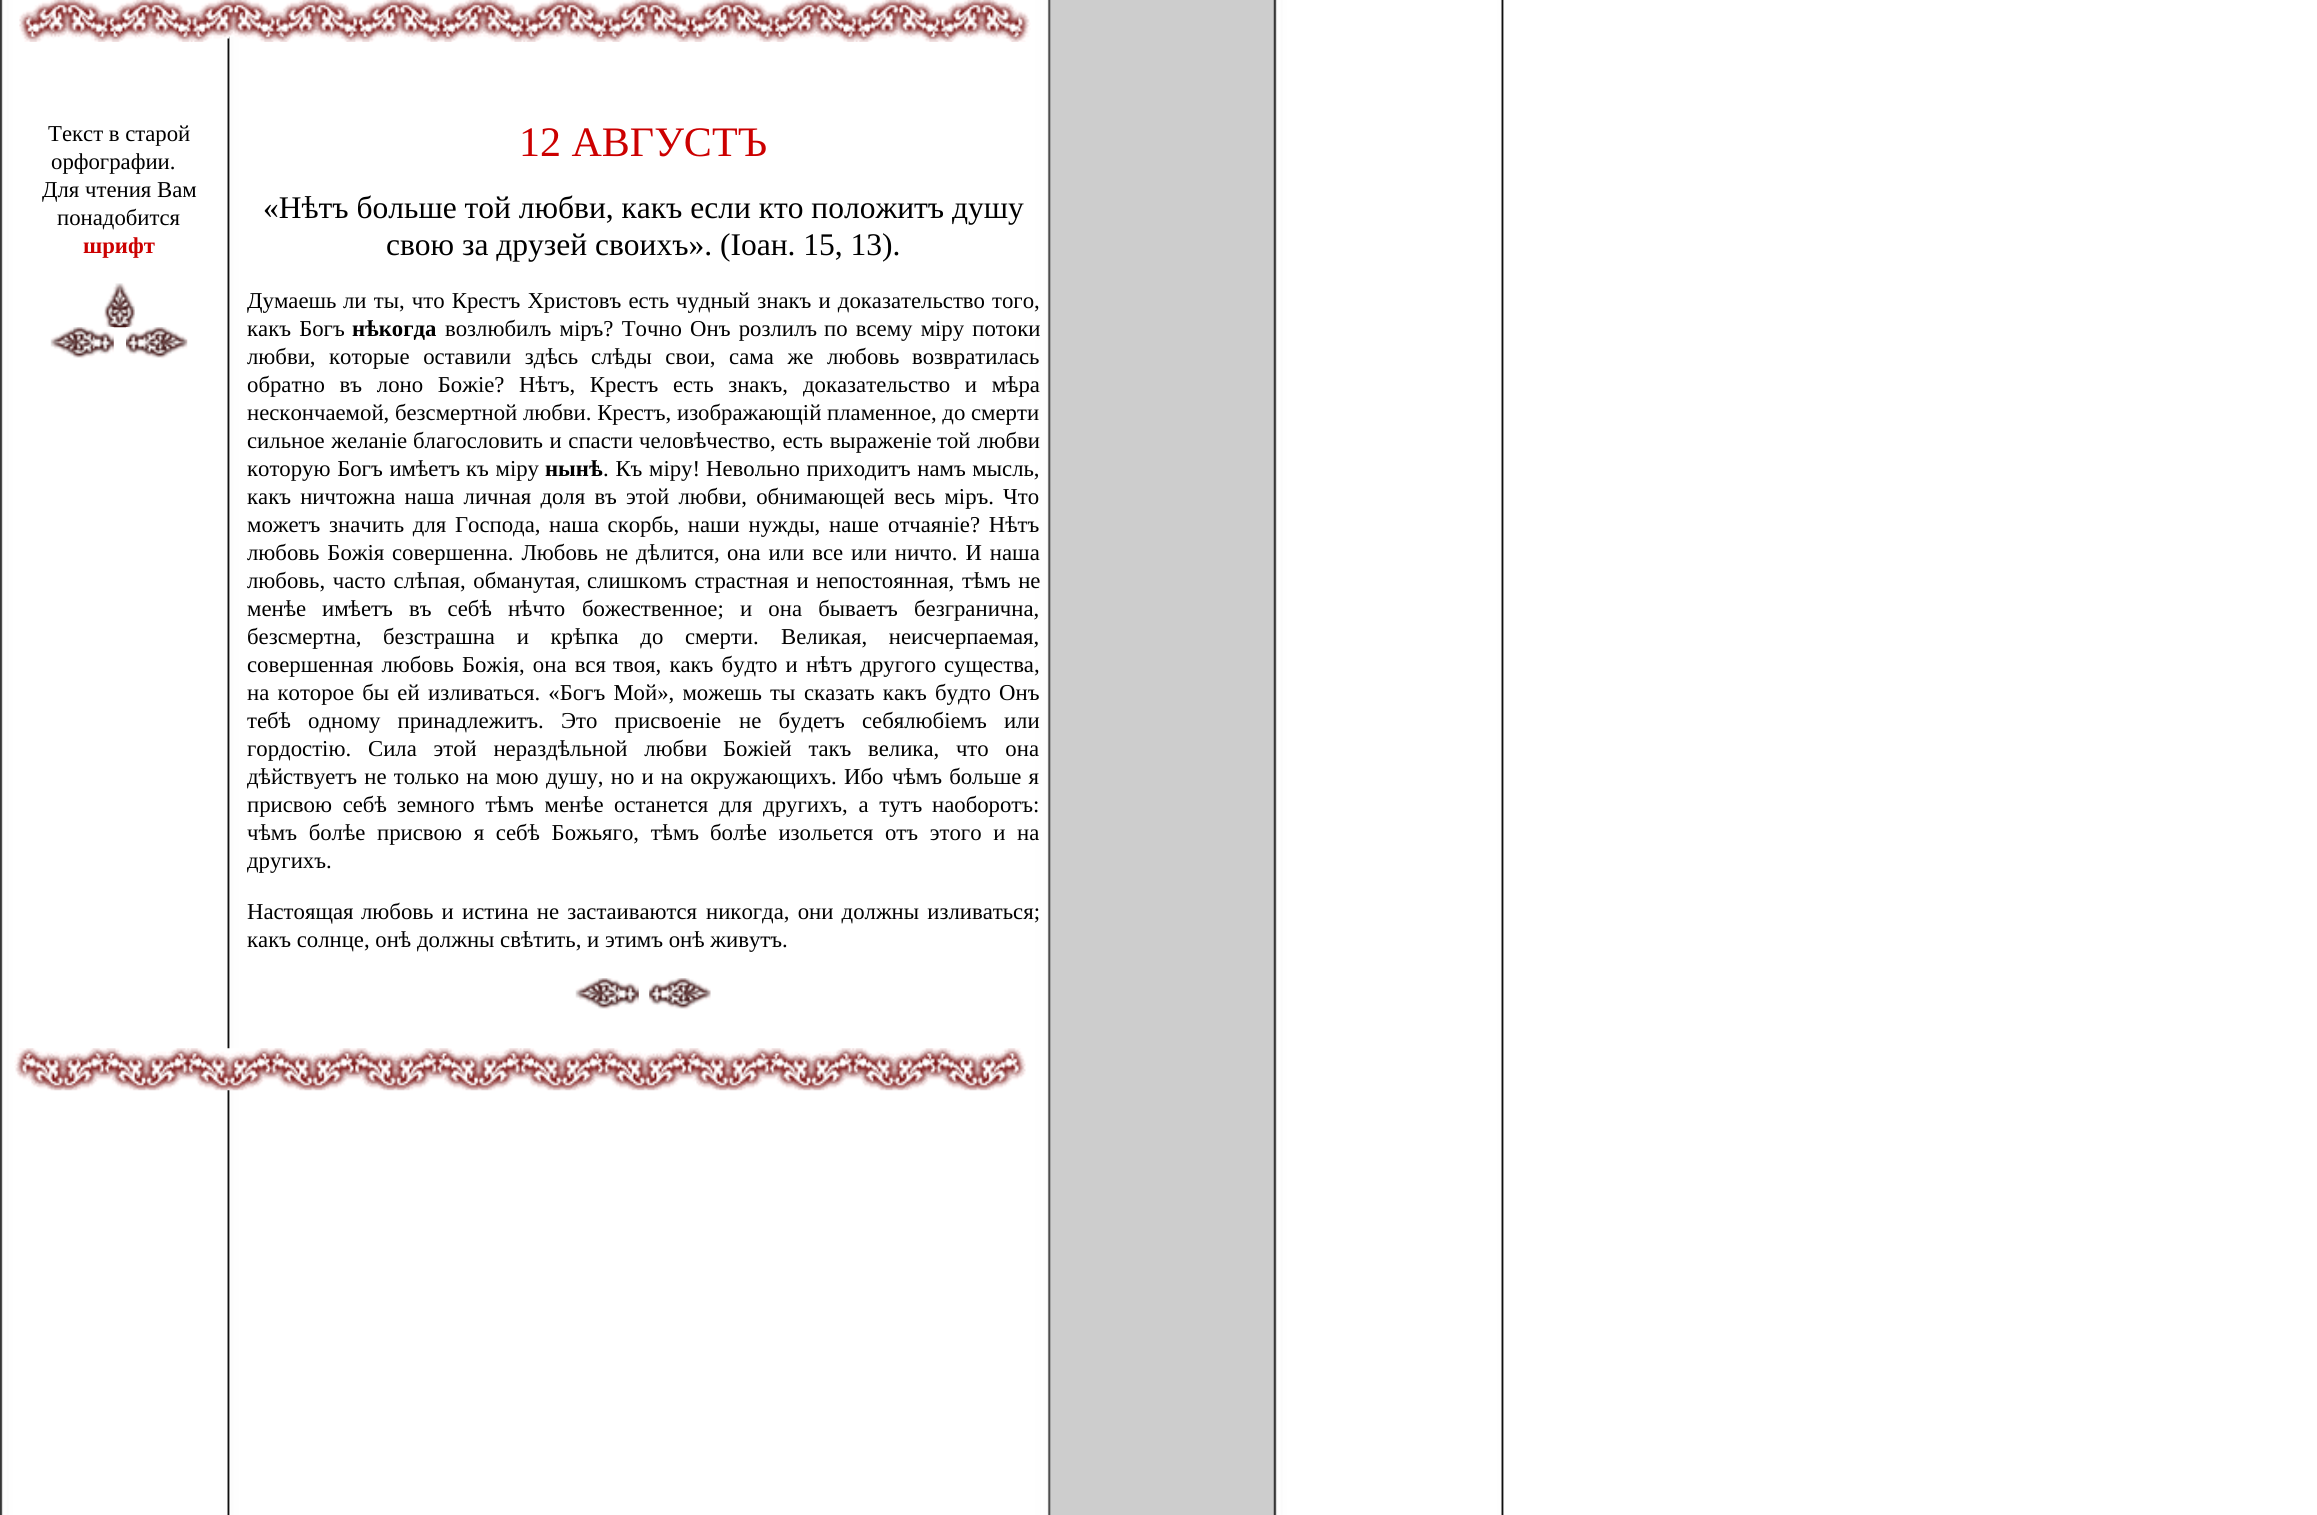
#include <cairo.h>
#include <math.h>
#include <stddef.h>


static void spaced_text(cairo_t *cr, double x, double y, const char *s, double letter, double word) {
    cairo_move_to(cr, x, y);
    while (*s) {
        char ch[5] = {0};
        int n = 0;
        do ch[n++] = *s++; while ((*s & 0xC0) == 0x80);
        cairo_show_text(cr, ch);
        cairo_rel_move_to(cr, letter + word * (*ch == ' '), 0);
    }
}

static void picture(cairo_t *cr, const char *path, double x, double y, double w, double h) {
    cairo_surface_t *image = cairo_image_surface_create_from_png(path);
    cairo_save(cr);
    cairo_set_source_surface(cr, image, x, y);
    cairo_rectangle(cr, x, y, w, h);
    cairo_fill(cr);
    cairo_restore(cr);
    cairo_surface_destroy(image);
}

int main(void) {
    cairo_surface_t *surface = cairo_image_surface_create(CAIRO_FORMAT_RGB24, 2317, 1515);
    cairo_t *cr = cairo_create(surface);
    cairo_font_options_t *options = cairo_font_options_create();
    cairo_font_options_set_hint_metrics(options, CAIRO_HINT_METRICS_OFF);
    cairo_font_options_set_hint_style(options, CAIRO_HINT_STYLE_NONE);
    cairo_set_font_options(cr, options);
    cairo_set_miter_limit(cr, 4);
    cairo_set_source_rgb(cr, 1, 1, 1);
    cairo_paint(cr);
    picture(cr, "img1.png", 0, 0, 1504, 1515);
    picture(cr, "img2.png", 19, 0, 1012, 42);
    cairo_select_font_face(cr, "Liberation Serif", CAIRO_FONT_SLANT_NORMAL, CAIRO_FONT_WEIGHT_NORMAL);
    cairo_set_font_size(cr, 22.75);
    cairo_set_source_rgb(cr, 0, 0, 0);
    cairo_move_to(cr, 48, 141);
    cairo_show_text(cr, "Текст в старой");
    cairo_move_to(cr, 51, 169);
    cairo_show_text(cr, "орфографии.");
    cairo_move_to(cr, 42, 197);
    cairo_show_text(cr, "Для чтения Вам");
    cairo_move_to(cr, 57, 225);
    cairo_show_text(cr, "понадобится");
    cairo_select_font_face(cr, "Liberation Serif", CAIRO_FONT_SLANT_NORMAL, CAIRO_FONT_WEIGHT_BOLD);
    cairo_set_source_rgb(cr, 0.8, 0, 0);
    cairo_move_to(cr, 83, 253);
    cairo_show_text(cr, "шрифт");
    picture(cr, "img3.png", 103, 283, 32, 45);
    picture(cr, "img4.png", 50, 327, 64, 32);
    picture(cr, "img5.png", 126, 327, 62, 32);
    cairo_select_font_face(cr, "Liberation Serif", CAIRO_FONT_SLANT_NORMAL, CAIRO_FONT_WEIGHT_NORMAL);
    cairo_set_font_size(cr, 42);
    cairo_move_to(cr, 519, 156);
    cairo_show_text(cr, "12 АВГУСТЪ");
    cairo_set_font_size(cr, 31.5);
    cairo_set_source_rgb(cr, 0, 0, 0);
    cairo_move_to(cr, 263, 218);
    cairo_show_text(cr, "«Нѣтъ больше той любви, какъ если кто положитъ душу");
    cairo_move_to(cr, 386, 255);
    cairo_show_text(cr, "свою за друзей своихъ». (Iоан. 15, 13).");
    cairo_set_font_size(cr, 22.75);
    cairo_move_to(cr, 247, 308);
    cairo_show_text(cr, "Думаешь");
    spaced_text(cr, 343, 308, "ли ты, что Крестъ Христовъ есть", 0, 1.5);
    spaced_text(cr, 676, 308, "чудный знакъ и доказательство", 0, 1.5);
    cairo_move_to(cr, 992, 308);
    cairo_show_text(cr, "того,");
    spaced_text(cr, 247, 336, "какъ Богъ", 0, 2.5);
    cairo_select_font_face(cr, "Liberation Serif", CAIRO_FONT_SLANT_NORMAL, CAIRO_FONT_WEIGHT_BOLD);
    cairo_move_to(cr, 352, 336);
    cairo_show_text(cr, "нѣкогда");
    cairo_select_font_face(cr, "Liberation Serif", CAIRO_FONT_SLANT_NORMAL, CAIRO_FONT_WEIGHT_NORMAL);
    spaced_text(cr, 445, 336, "возлюбилъ мiръ? Точно Онъ розлилъ", 0, 2.5);
    spaced_text(cr, 824, 336, "по всему мiру потоки", 0, 2.5);
    cairo_move_to(cr, 247, 364);
    cairo_show_text(cr, "любви,");
    spaced_text(cr, 329, 364, "которые оставили здѣсь", 0, 8);
    spaced_text(cr, 591, 364, "слѣды свои, сама же любовь", 0, 8);
    cairo_move_to(cr, 912, 364);
    cairo_show_text(cr, "возвратилась");
    spaced_text(cr, 247, 392, "обратно въ лоно Божiе?", 0, 9);
    spaced_text(cr, 519, 392, "Нѣтъ, Крестъ есть знакъ,", 0, 9);
    spaced_text(cr, 803, 392, "доказательство и мѣра", 0, 9);
    cairo_move_to(cr, 247, 420);
    cairo_show_text(cr, "нескончаемой, безсмертной любви. Крестъ, изображающiй пламенное, до");
    cairo_move_to(cr, 971, 420);
    cairo_show_text(cr, "смерти");
    spaced_text(cr, 247, 448, "сильное желанiе", 0, 1);
    spaced_text(cr, 413, 448, "благословить и спасти", 0, 1);
    spaced_text(cr, 639, 448, "человѣчество, есть выраженiе", 0, 1);
    spaced_text(cr, 937, 448, "той любви", 0, 1);
    spaced_text(cr, 247, 476, "которую Богъ имѣетъ", 0, 1);
    spaced_text(cr, 466, 476, "къ мiру", 0, 1);
    cairo_select_font_face(cr, "Liberation Serif", CAIRO_FONT_SLANT_NORMAL, CAIRO_FONT_WEIGHT_BOLD);
    cairo_move_to(cr, 545, 476);
    cairo_show_text(cr, "нынѣ");
    cairo_select_font_face(cr, "Liberation Serif", CAIRO_FONT_SLANT_NORMAL, CAIRO_FONT_WEIGHT_NORMAL);
    spaced_text(cr, 603, 476, ". Къ мiру!", 0, 1);
    spaced_text(cr, 706, 476, "Невольно приходитъ намъ мысль,", 0, 1);
    spaced_text(cr, 247, 504, "какъ ничтожна наша личная доля въ", 0, 3.5);
    spaced_text(cr, 626, 504, "этой любви, обнимающей весь мiръ.", 0, 3.5);
    cairo_move_to(cr, 1003, 504);
    cairo_show_text(cr, "Что");
    spaced_text(cr, 247, 532, "можетъ значить для Господа,", 0, 3);
    spaced_text(cr, 549, 532, "наша скорбь, наши нужды, наше", 0, 3);
    spaced_text(cr, 888, 532, "отчаянiе? Нѣтъ", 0, 3);
    spaced_text(cr, 247, 560, "любовь Божiя", 0, 2.25);
    spaced_text(cr, 392, 560, "совершенна. Любовь не дѣлится,", 0, 2.25);
    spaced_text(cr, 727, 560, "она или все или ничто. И наша", 0, 2.25);
    spaced_text(cr, 247, 588, "любовь, часто слѣпая, обманутая,", 0, 2);
    spaced_text(cr, 587, 588, "слишкомъ страстная и", 0, 2);
    spaced_text(cr, 816, 588, "непостоянная, тѣмъ не", 0, 2);
    cairo_move_to(cr, 247, 616);
    cairo_show_text(cr, "менѣе");
    spaced_text(cr, 322, 616, "имѣетъ въ себѣ нѣчто", 0, 10.5);
    spaced_text(cr, 582, 616, "божественное; и она бываетъ", 0, 10.5);
    cairo_move_to(cr, 914, 616);
    cairo_show_text(cr, "безгранична,");
    cairo_move_to(cr, 247, 644);
    cairo_show_text(cr, "безсмертна,");
    spaced_text(cr, 383, 644, "безстрашна и крѣпка до смерти.", 0, 16);
    spaced_text(cr, 781, 644, "Великая, неисчерпаемая,", 0, 16);
    spaced_text(cr, 247, 672, "совершенная любовь Божiя, она вся", 0, 2.5);
    spaced_text(cr, 613, 672, "твоя, какъ будто и нѣтъ другого", 0, 2.5);
    cairo_move_to(cr, 944, 672);
    cairo_show_text(cr, "существа,");
    spaced_text(cr, 247, 700, "на которое бы ей", 0, 2.5);
    spaced_text(cr, 428, 700, "изливаться. «Богъ Мой», можешь ты", 0, 2.5);
    spaced_text(cr, 804, 700, "сказать какъ будто Онъ", 0, 2.5);
    cairo_move_to(cr, 247, 728);
    cairo_show_text(cr, "тебѣ");
    spaced_text(cr, 308, 728, "одному принадлежитъ. Это присвоенiе", 0, 11.5);
    spaced_text(cr, 739, 728, "не будетъ себялюбiемъ или", 0, 11.5);
    cairo_move_to(cr, 247, 756);
    cairo_show_text(cr, "гордостiю.");
    spaced_text(cr, 368, 756, "Сила этой нераздѣльной любви", 0, 11);
    spaced_text(cr, 723, 756, "Божiей такъ велика, что она", 0, 11);
    spaced_text(cr, 247, 784, "дѣйствуетъ не только на мою", 0, 1.5);
    spaced_text(cr, 546, 784, "душу, но и на окружающихъ. Ибо", 0, 1.5);
    spaced_text(cr, 892, 784, "чѣмъ больше я", 0, 1.5);
    spaced_text(cr, 247, 812, "присвою себѣ", 0, 5);
    spaced_text(cr, 397, 812, "земного тѣмъ менѣе", 0, 5);
    spaced_text(cr, 614, 812, "останется для другихъ, а тутъ", 0, 5);
    cairo_move_to(cr, 932, 812);
    cairo_show_text(cr, "наоборотъ:");
    spaced_text(cr, 247, 840, "чѣмъ болѣе", 0, 6);
    spaced_text(cr, 377, 840, "присвою я себѣ Божьяго, тѣмъ", 0, 6);
    spaced_text(cr, 710, 840, "болѣе изольется отъ этого и на", 0, 6);
    cairo_move_to(cr, 247, 868);
    cairo_show_text(cr, "другихъ.");
    cairo_move_to(cr, 247, 919);
    cairo_show_text(cr, "Настоящая");
    spaced_text(cr, 361, 919, "любовь и истина не застаиваются", 0, 2.5);
    spaced_text(cr, 706, 919, "никогда, они должны изливаться;", 0, 2.5);
    cairo_move_to(cr, 247, 947);
    cairo_show_text(cr, "какъ солнце, онѣ должны свѣтить, и этимъ онѣ живутъ.");
    picture(cr, "img6.png", 575, 978, 64, 32);
    picture(cr, "img7.png", 649, 978, 62, 32);
    picture(cr, "img8.png", 14, 1048, 1012, 43);
    cairo_surface_write_to_png(surface, "page.png");
    cairo_font_options_destroy(options);
    cairo_destroy(cr);
    cairo_surface_destroy(surface);
    return 0;
}
